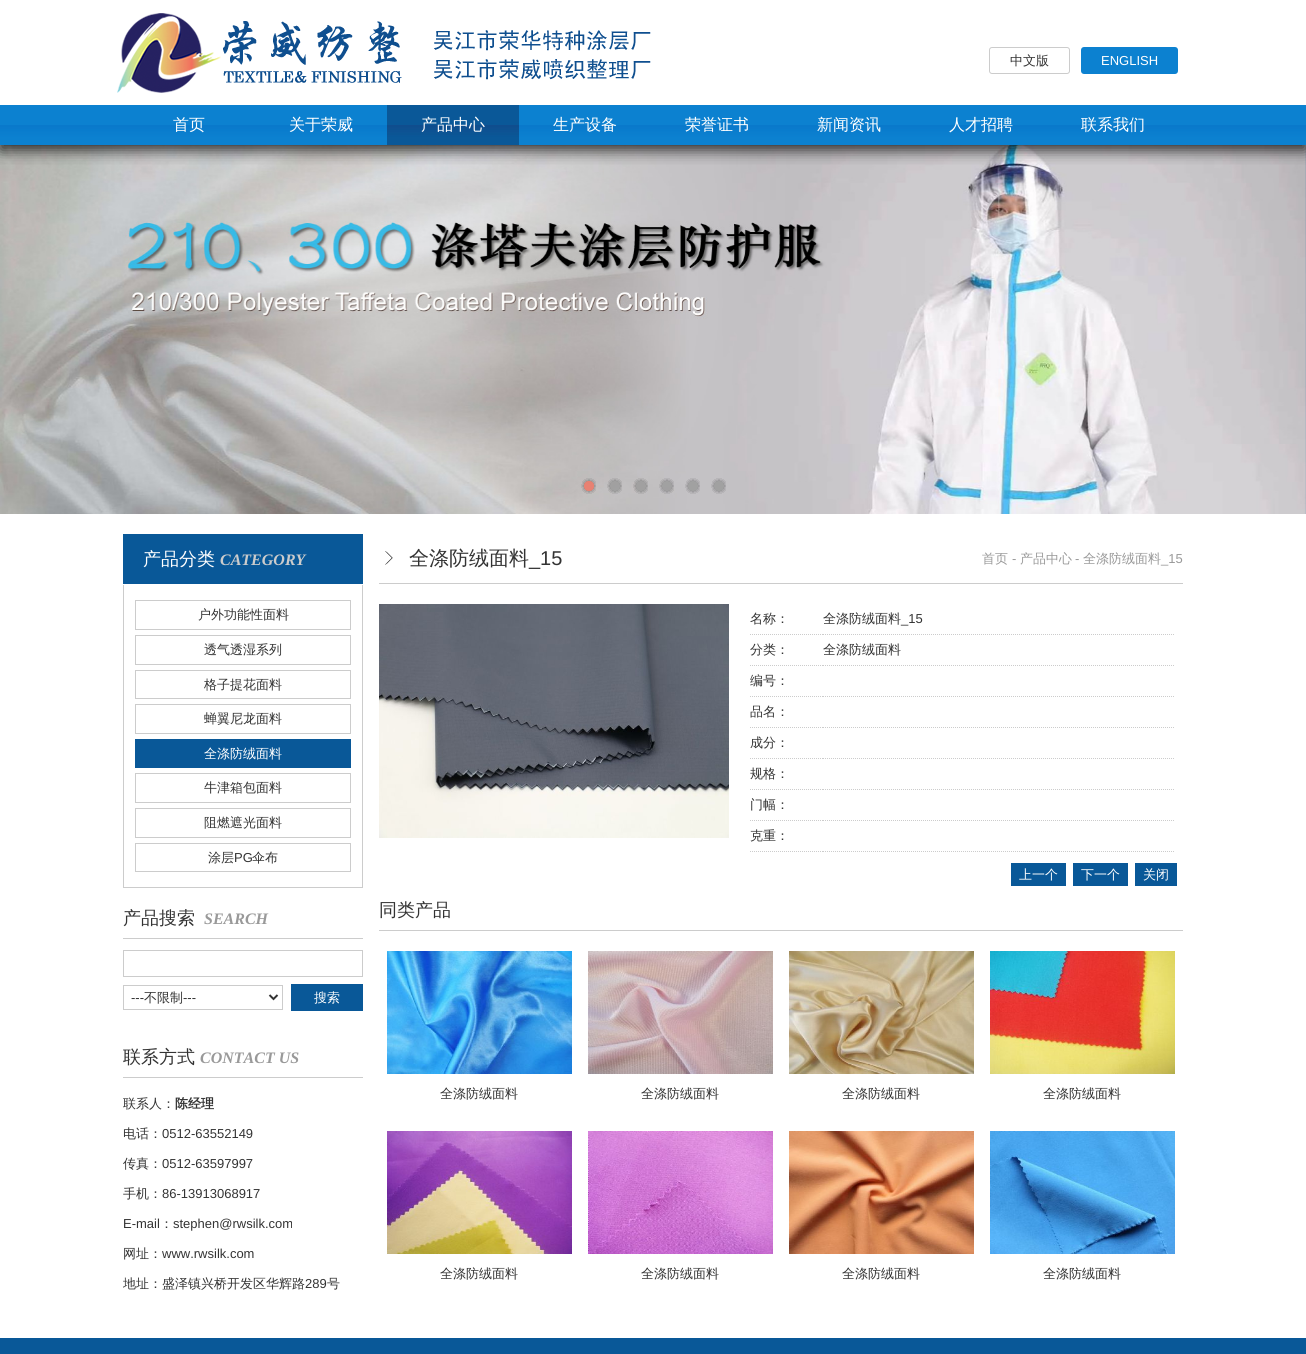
#include <cairo.h>
#include <math.h>
#include <stddef.h>


static void round_rect(cairo_t *cr, double x, double y, double w, double h, double r) {
    cairo_new_sub_path(cr);
    cairo_arc(cr, x + w - r, y + h - r, r, 0, M_PI / 2);
    cairo_arc(cr, x + r, y + h - r, r, M_PI / 2, M_PI);
    cairo_arc(cr, x + r, y + r, r, M_PI, 1.5 * M_PI);
    cairo_arc(cr, x + w - r, y + r, r, 1.5 * M_PI, 2 * M_PI);
    cairo_close_path(cr);
}

static void shadow(cairo_t *cr, double x, double y, double w, double h, double r, double blur, double alpha) {
    cairo_push_group_with_content(cr, CAIRO_CONTENT_ALPHA);
    cairo_set_operator(cr, CAIRO_OPERATOR_SOURCE);
    for (int i = 15; i >= -15 && fmin(w, h) + blur * i / 3 > 0; i -= 2) {
        double e = blur * i / 6;
        cairo_set_source_rgba(cr, 0, 0, 0, alpha * erfc((i - 1) / 8.5) / 2);
        round_rect(cr, x - e, y - e, w + 2 * e, h + 2 * e, fmax(0, fmin(r + e + blur * .6, fmin(w, h) / 2 + e)));
        cairo_fill(cr);
    }
    cairo_pattern_t *soft = cairo_pop_group(cr);
    cairo_mask(cr, soft);
    cairo_pattern_destroy(soft);
}

static void picture(cairo_t *cr, const char *path, double x, double y, double w, double h) {
    cairo_surface_t *image = cairo_image_surface_create_from_png(path);
    cairo_save(cr);
    cairo_set_source_surface(cr, image, x, y);
    cairo_rectangle(cr, x, y, w, h);
    cairo_fill(cr);
    cairo_restore(cr);
    cairo_surface_destroy(image);
}

int main(void) {
    cairo_surface_t *surface = cairo_image_surface_create(CAIRO_FORMAT_RGB24, 1306, 1354);
    cairo_t *cr = cairo_create(surface);
    cairo_font_options_t *options = cairo_font_options_create();
    cairo_font_options_set_hint_metrics(options, CAIRO_HINT_METRICS_OFF);
    cairo_font_options_set_hint_style(options, CAIRO_HINT_STYLE_NONE);
    cairo_set_font_options(cr, options);
    cairo_set_miter_limit(cr, 4);
    cairo_set_source_rgb(cr, 1, 1, 1);
    cairo_paint(cr);
    picture(cr, "img5.png", 1305, 145, 1, 369);
    picture(cr, "img6.png", 0, 145, 1306, 369);
    cairo_save(cr);
    cairo_rectangle(cr, 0, 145, 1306, 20);
    cairo_clip(cr);
    cairo_set_source_rgb(cr, 0, 0, 0);
    shadow(cr, 0, 5, 1306, 145, 0, 7.5, 0.8);
    cairo_restore(cr);
    picture(cr, "img1.png", 117, 13, 285, 80);
    picture(cr, "img2.png", 434, 30, 217, 50);
    round_rect(cr, 989.5, 47.5, 80, 26, 2.5);
    cairo_set_source_rgb(cr, 0.8, 0.8, 0.8);
    cairo_set_line_width(cr, 1);
    cairo_stroke(cr);
    cairo_select_font_face(cr, "WenQuanYi Zen Hei Medium", CAIRO_FONT_SLANT_NORMAL, CAIRO_FONT_WEIGHT_NORMAL);
    cairo_set_font_size(cr, 13);
    cairo_set_source_rgb(cr, 0.2, 0.2, 0.2);
    cairo_move_to(cr, 1010, 65);
    cairo_show_text(cr, "中文版");
    cairo_set_source_rgb(cr, 0.047, 0.506, 0.816);
    round_rect(cr, 1081, 47, 97, 27, 3);
    cairo_fill(cr);
    cairo_select_font_face(cr, "Liberation Sans", CAIRO_FONT_SLANT_NORMAL, CAIRO_FONT_WEIGHT_NORMAL);
    cairo_set_source_rgb(cr, 1, 1, 1);
    cairo_move_to(cr, 1101, 65);
    cairo_show_text(cr, "ENGLISH");
    picture(cr, "img3.png", 0, 105, 1306, 40);
    cairo_select_font_face(cr, "WenQuanYi Zen Hei Medium", CAIRO_FONT_SLANT_NORMAL, CAIRO_FONT_WEIGHT_NORMAL);
    cairo_set_font_size(cr, 16);
    cairo_move_to(cr, 173, 130);
    cairo_show_text(cr, "首页");
    cairo_move_to(cr, 289, 130);
    cairo_show_text(cr, "关于荣威");
    picture(cr, "img4.png", 387, 105, 132, 40);
    cairo_move_to(cr, 421, 130);
    cairo_show_text(cr, "产品中心");
    cairo_move_to(cr, 553, 130);
    cairo_show_text(cr, "生产设备");
    cairo_move_to(cr, 685, 130);
    cairo_show_text(cr, "荣誉证书");
    cairo_move_to(cr, 817, 130);
    cairo_show_text(cr, "新闻资讯");
    cairo_move_to(cr, 949, 130);
    cairo_show_text(cr, "人才招聘");
    cairo_move_to(cr, 1081, 130);
    cairo_show_text(cr, "联系我们");
    picture(cr, "img7.png", 581, 478, 15, 16);
    picture(cr, "img8.png", 607, 478, 15, 16);
    picture(cr, "img9.png", 633, 478, 15, 16);
    picture(cr, "img10.png", 659, 478, 15, 16);
    picture(cr, "img11.png", 685, 478, 15, 16);
    picture(cr, "img12.png", 711, 478, 15, 16);
    cairo_set_source_rgb(cr, 0.039, 0.345, 0.596);
    cairo_rectangle(cr, 123, 534, 240, 50);
    cairo_fill(cr);
    cairo_set_font_size(cr, 18);
    cairo_set_source_rgb(cr, 1, 1, 1);
    cairo_move_to(cr, 143, 565);
    cairo_show_text(cr, "产品分类");
    cairo_select_font_face(cr, "Liberation Serif", CAIRO_FONT_SLANT_ITALIC, CAIRO_FONT_WEIGHT_BOLD);
    cairo_set_font_size(cr, 16);
    cairo_set_source_rgb(cr, 0.8, 0.8, 0.8);
    cairo_move_to(cr, 220, 565);
    cairo_show_text(cr, "CATEGORY");
    cairo_rectangle(cr, 362, 585, 1, 303);
    cairo_fill(cr);
    cairo_rectangle(cr, 123, 887, 240, 1);
    cairo_fill(cr);
    cairo_rectangle(cr, 123, 585, 1, 303);
    cairo_fill(cr);
    cairo_rectangle(cr, 135.5, 600.5, 215, 29);
    cairo_stroke(cr);
    cairo_select_font_face(cr, "WenQuanYi Zen Hei Medium", CAIRO_FONT_SLANT_NORMAL, CAIRO_FONT_WEIGHT_NORMAL);
    cairo_set_font_size(cr, 13);
    cairo_set_source_rgb(cr, 0.2, 0.2, 0.2);
    cairo_move_to(cr, 198, 619);
    cairo_show_text(cr, "户外功能性面料");
    cairo_rectangle(cr, 135.5, 635.5, 215, 29);
    cairo_set_source_rgb(cr, 0.8, 0.8, 0.8);
    cairo_stroke(cr);
    cairo_set_source_rgb(cr, 0.2, 0.2, 0.2);
    cairo_move_to(cr, 204, 654);
    cairo_show_text(cr, "透气透湿系列");
    cairo_rectangle(cr, 135.5, 670.5, 215, 28);
    cairo_set_source_rgb(cr, 0.8, 0.8, 0.8);
    cairo_stroke(cr);
    cairo_set_source_rgb(cr, 0.2, 0.2, 0.2);
    cairo_move_to(cr, 204, 689);
    cairo_show_text(cr, "格子提花面料");
    cairo_rectangle(cr, 135.5, 704.5, 215, 29);
    cairo_set_source_rgb(cr, 0.8, 0.8, 0.8);
    cairo_stroke(cr);
    cairo_set_source_rgb(cr, 0.2, 0.2, 0.2);
    cairo_move_to(cr, 204, 723);
    cairo_show_text(cr, "蝉翼尼龙面料");
    cairo_set_source_rgb(cr, 0.039, 0.345, 0.596);
    cairo_rectangle(cr, 135, 739, 216, 29);
    cairo_fill(cr);
    cairo_set_source_rgb(cr, 1, 1, 1);
    cairo_move_to(cr, 204, 758);
    cairo_show_text(cr, "全涤防绒面料");
    cairo_rectangle(cr, 135.5, 773.5, 215, 29);
    cairo_set_source_rgb(cr, 0.8, 0.8, 0.8);
    cairo_stroke(cr);
    cairo_set_source_rgb(cr, 0.2, 0.2, 0.2);
    cairo_move_to(cr, 204, 792);
    cairo_show_text(cr, "牛津箱包面料");
    cairo_rectangle(cr, 135.5, 808.5, 215, 29);
    cairo_set_source_rgb(cr, 0.8, 0.8, 0.8);
    cairo_stroke(cr);
    cairo_set_source_rgb(cr, 0.2, 0.2, 0.2);
    cairo_move_to(cr, 204, 827);
    cairo_show_text(cr, "阻燃遮光面料");
    cairo_rectangle(cr, 135.5, 843.5, 215, 28);
    cairo_set_source_rgb(cr, 0.8, 0.8, 0.8);
    cairo_stroke(cr);
    cairo_set_source_rgb(cr, 0.2, 0.2, 0.2);
    cairo_move_to(cr, 208, 862);
    cairo_show_text(cr, "涂层");
    cairo_select_font_face(cr, "Liberation Sans", CAIRO_FONT_SLANT_NORMAL, CAIRO_FONT_WEIGHT_NORMAL);
    cairo_move_to(cr, 234, 862);
    cairo_show_text(cr, "PG");
    cairo_select_font_face(cr, "WenQuanYi Zen Hei Medium", CAIRO_FONT_SLANT_NORMAL, CAIRO_FONT_WEIGHT_NORMAL);
    cairo_move_to(cr, 252, 862);
    cairo_show_text(cr, "伞布");
    cairo_set_source_rgb(cr, 0.8, 0.8, 0.8);
    cairo_rectangle(cr, 123, 938, 240, 1);
    cairo_fill(cr);
    cairo_set_font_size(cr, 18);
    cairo_set_source_rgb(cr, 0.2, 0.2, 0.2);
    cairo_move_to(cr, 123, 924);
    cairo_show_text(cr, "产品搜索");
    cairo_select_font_face(cr, "Liberation Serif", CAIRO_FONT_SLANT_ITALIC, CAIRO_FONT_WEIGHT_BOLD);
    cairo_set_font_size(cr, 16);
    cairo_set_source_rgb(cr, 0.6, 0.6, 0.6);
    cairo_move_to(cr, 204, 924);
    cairo_show_text(cr, "SEARCH");
    cairo_rectangle(cr, 123.5, 950.5, 239, 26);
    cairo_set_source_rgb(cr, 0.8, 0.8, 0.8);
    cairo_stroke(cr);
    cairo_rectangle(cr, 123.5, 985.5, 159, 24);
    cairo_stroke(cr);
    cairo_new_path(cr);
    cairo_move_to(cr, 269.5, 995);
    cairo_line_to(cr, 273.5, 999);
    cairo_line_to(cr, 277.5, 995);
    cairo_set_source_rgb(cr, 0.2, 0.2, 0.2);
    cairo_set_line_width(cr, 2);
    cairo_stroke(cr);
    cairo_select_font_face(cr, "Liberation Sans", CAIRO_FONT_SLANT_NORMAL, CAIRO_FONT_WEIGHT_NORMAL);
    cairo_set_font_size(cr, 13);
    cairo_move_to(cr, 131, 1002);
    cairo_show_text(cr, "---");
    cairo_select_font_face(cr, "WenQuanYi Zen Hei Medium", CAIRO_FONT_SLANT_NORMAL, CAIRO_FONT_WEIGHT_NORMAL);
    cairo_move_to(cr, 144, 1002);
    cairo_show_text(cr, "不限制");
    cairo_select_font_face(cr, "Liberation Sans", CAIRO_FONT_SLANT_NORMAL, CAIRO_FONT_WEIGHT_NORMAL);
    cairo_move_to(cr, 183, 1002);
    cairo_show_text(cr, "---");
    cairo_set_source_rgb(cr, 0.039, 0.345, 0.596);
    cairo_rectangle(cr, 291, 984, 72, 27);
    cairo_fill(cr);
    cairo_select_font_face(cr, "WenQuanYi Zen Hei Medium", CAIRO_FONT_SLANT_NORMAL, CAIRO_FONT_WEIGHT_NORMAL);
    cairo_set_source_rgb(cr, 1, 1, 1);
    cairo_move_to(cr, 314, 1002);
    cairo_show_text(cr, "搜索");
    cairo_set_source_rgb(cr, 0.8, 0.8, 0.8);
    cairo_rectangle(cr, 123, 1077, 240, 1);
    cairo_fill(cr);
    cairo_set_font_size(cr, 18);
    cairo_set_source_rgb(cr, 0.2, 0.2, 0.2);
    cairo_move_to(cr, 123, 1063);
    cairo_show_text(cr, "联系方式");
    cairo_select_font_face(cr, "Liberation Serif", CAIRO_FONT_SLANT_ITALIC, CAIRO_FONT_WEIGHT_BOLD);
    cairo_set_font_size(cr, 16);
    cairo_set_source_rgb(cr, 0.6, 0.6, 0.6);
    cairo_move_to(cr, 200, 1063);
    cairo_show_text(cr, "CONTACT US");
    cairo_select_font_face(cr, "WenQuanYi Zen Hei Medium", CAIRO_FONT_SLANT_NORMAL, CAIRO_FONT_WEIGHT_NORMAL);
    cairo_set_font_size(cr, 13);
    cairo_set_source_rgb(cr, 0.2, 0.2, 0.2);
    cairo_move_to(cr, 123, 1108);
    cairo_show_text(cr, "联系人：");
    cairo_select_font_face(cr, "WenQuanYi Zen Hei", CAIRO_FONT_SLANT_NORMAL, CAIRO_FONT_WEIGHT_BOLD);
    cairo_move_to(cr, 175, 1108);
    cairo_show_text(cr, "陈经理");
    cairo_select_font_face(cr, "WenQuanYi Zen Hei Medium", CAIRO_FONT_SLANT_NORMAL, CAIRO_FONT_WEIGHT_NORMAL);
    cairo_move_to(cr, 123, 1138);
    cairo_show_text(cr, "电话：");
    cairo_select_font_face(cr, "Liberation Sans", CAIRO_FONT_SLANT_NORMAL, CAIRO_FONT_WEIGHT_NORMAL);
    cairo_move_to(cr, 162, 1138);
    cairo_show_text(cr, "0512-63552149");
    cairo_select_font_face(cr, "WenQuanYi Zen Hei Medium", CAIRO_FONT_SLANT_NORMAL, CAIRO_FONT_WEIGHT_NORMAL);
    cairo_move_to(cr, 123, 1168);
    cairo_show_text(cr, "传真：");
    cairo_select_font_face(cr, "Liberation Sans", CAIRO_FONT_SLANT_NORMAL, CAIRO_FONT_WEIGHT_NORMAL);
    cairo_move_to(cr, 162, 1168);
    cairo_show_text(cr, "0512-63597997");
    cairo_select_font_face(cr, "WenQuanYi Zen Hei Medium", CAIRO_FONT_SLANT_NORMAL, CAIRO_FONT_WEIGHT_NORMAL);
    cairo_move_to(cr, 123, 1198);
    cairo_show_text(cr, "手机：");
    cairo_select_font_face(cr, "Liberation Sans", CAIRO_FONT_SLANT_NORMAL, CAIRO_FONT_WEIGHT_NORMAL);
    cairo_move_to(cr, 162, 1198);
    cairo_show_text(cr, "86-13913068917");
    cairo_move_to(cr, 123, 1228);
    cairo_show_text(cr, "E-mail");
    cairo_select_font_face(cr, "WenQuanYi Zen Hei Medium", CAIRO_FONT_SLANT_NORMAL, CAIRO_FONT_WEIGHT_NORMAL);
    cairo_move_to(cr, 160, 1228);
    cairo_show_text(cr, "：");
    cairo_select_font_face(cr, "Liberation Sans", CAIRO_FONT_SLANT_NORMAL, CAIRO_FONT_WEIGHT_NORMAL);
    cairo_move_to(cr, 173, 1228);
    cairo_show_text(cr, "stephen@rwsilk.com");
    cairo_select_font_face(cr, "WenQuanYi Zen Hei Medium", CAIRO_FONT_SLANT_NORMAL, CAIRO_FONT_WEIGHT_NORMAL);
    cairo_move_to(cr, 123, 1258);
    cairo_show_text(cr, "网址：");
    cairo_select_font_face(cr, "Liberation Sans", CAIRO_FONT_SLANT_NORMAL, CAIRO_FONT_WEIGHT_NORMAL);
    cairo_move_to(cr, 162, 1258);
    cairo_show_text(cr, "www.rwsilk.com");
    cairo_select_font_face(cr, "WenQuanYi Zen Hei Medium", CAIRO_FONT_SLANT_NORMAL, CAIRO_FONT_WEIGHT_NORMAL);
    cairo_move_to(cr, 123, 1288);
    cairo_show_text(cr, "地址：盛泽镇兴桥开发区华辉路");
    cairo_select_font_face(cr, "Liberation Sans", CAIRO_FONT_SLANT_NORMAL, CAIRO_FONT_WEIGHT_NORMAL);
    cairo_move_to(cr, 305, 1288);
    cairo_show_text(cr, "289");
    cairo_select_font_face(cr, "WenQuanYi Zen Hei Medium", CAIRO_FONT_SLANT_NORMAL, CAIRO_FONT_WEIGHT_NORMAL);
    cairo_move_to(cr, 327, 1288);
    cairo_show_text(cr, "号");
    cairo_set_source_rgb(cr, 0.8, 0.8, 0.8);
    cairo_rectangle(cr, 379, 583, 804, 1);
    cairo_fill(cr);
    picture(cr, "img13.png", 385, 551, 8, 14);
    cairo_set_font_size(cr, 20);
    cairo_set_source_rgb(cr, 0.2, 0.2, 0.2);
    cairo_move_to(cr, 409, 565);
    cairo_show_text(cr, "全涤防绒面料");
    cairo_select_font_face(cr, "Liberation Sans", CAIRO_FONT_SLANT_NORMAL, CAIRO_FONT_WEIGHT_NORMAL);
    cairo_move_to(cr, 529, 565);
    cairo_show_text(cr, "_15");
    cairo_select_font_face(cr, "WenQuanYi Zen Hei Medium", CAIRO_FONT_SLANT_NORMAL, CAIRO_FONT_WEIGHT_NORMAL);
    cairo_set_font_size(cr, 13);
    cairo_set_source_rgb(cr, 0.6, 0.6, 0.6);
    cairo_move_to(cr, 982, 563);
    cairo_show_text(cr, "首页");
    cairo_select_font_face(cr, "Liberation Sans", CAIRO_FONT_SLANT_NORMAL, CAIRO_FONT_WEIGHT_NORMAL);
    cairo_move_to(cr, 1012, 563);
    cairo_show_text(cr, "-");
    cairo_select_font_face(cr, "WenQuanYi Zen Hei Medium", CAIRO_FONT_SLANT_NORMAL, CAIRO_FONT_WEIGHT_NORMAL);
    cairo_move_to(cr, 1020, 563);
    cairo_show_text(cr, "产品中心");
    cairo_select_font_face(cr, "Liberation Sans", CAIRO_FONT_SLANT_NORMAL, CAIRO_FONT_WEIGHT_NORMAL);
    cairo_move_to(cr, 1075, 563);
    cairo_show_text(cr, "-");
    cairo_select_font_face(cr, "WenQuanYi Zen Hei Medium", CAIRO_FONT_SLANT_NORMAL, CAIRO_FONT_WEIGHT_NORMAL);
    cairo_move_to(cr, 1083, 563);
    cairo_show_text(cr, "全涤防绒面料");
    cairo_select_font_face(cr, "Liberation Sans", CAIRO_FONT_SLANT_NORMAL, CAIRO_FONT_WEIGHT_NORMAL);
    cairo_move_to(cr, 1161, 563);
    cairo_show_text(cr, "_15");
    picture(cr, "img14.png", 379, 604, 350, 234);
    cairo_new_path(cr);
    cairo_move_to(cr, 750, 634.5);
    cairo_line_to(cr, 823, 634.5);
    cairo_set_source_rgb(cr, 0.8, 0.8, 0.8);
    cairo_set_line_width(cr, 1);
    cairo_set_dash(cr, (double[]){1, 1}, 2, 0);
    cairo_stroke(cr);
    cairo_select_font_face(cr, "WenQuanYi Zen Hei Medium", CAIRO_FONT_SLANT_NORMAL, CAIRO_FONT_WEIGHT_NORMAL);
    cairo_set_source_rgb(cr, 0.2, 0.2, 0.2);
    cairo_move_to(cr, 750, 623);
    cairo_show_text(cr, "名称：");
    cairo_new_path(cr);
    cairo_move_to(cr, 823, 634.5);
    cairo_line_to(cr, 1174, 634.5);
    cairo_set_source_rgb(cr, 0.8, 0.8, 0.8);
    cairo_stroke(cr);
    cairo_set_source_rgb(cr, 0.2, 0.2, 0.2);
    cairo_move_to(cr, 823, 623);
    cairo_show_text(cr, "全涤防绒面料");
    cairo_select_font_face(cr, "Liberation Sans", CAIRO_FONT_SLANT_NORMAL, CAIRO_FONT_WEIGHT_NORMAL);
    cairo_move_to(cr, 901, 623);
    cairo_show_text(cr, "_15");
    cairo_new_path(cr);
    cairo_move_to(cr, 750, 665.5);
    cairo_line_to(cr, 823, 665.5);
    cairo_set_source_rgb(cr, 0.8, 0.8, 0.8);
    cairo_stroke(cr);
    cairo_select_font_face(cr, "WenQuanYi Zen Hei Medium", CAIRO_FONT_SLANT_NORMAL, CAIRO_FONT_WEIGHT_NORMAL);
    cairo_set_source_rgb(cr, 0.2, 0.2, 0.2);
    cairo_move_to(cr, 750, 654);
    cairo_show_text(cr, "分类：");
    cairo_new_path(cr);
    cairo_move_to(cr, 823, 665.5);
    cairo_line_to(cr, 1174, 665.5);
    cairo_set_source_rgb(cr, 0.8, 0.8, 0.8);
    cairo_stroke(cr);
    cairo_set_source_rgb(cr, 0.2, 0.2, 0.2);
    cairo_move_to(cr, 823, 654);
    cairo_show_text(cr, "全涤防绒面料");
    cairo_new_path(cr);
    cairo_move_to(cr, 750, 696.5);
    cairo_line_to(cr, 823, 696.5);
    cairo_set_source_rgb(cr, 0.8, 0.8, 0.8);
    cairo_stroke(cr);
    cairo_set_source_rgb(cr, 0.2, 0.2, 0.2);
    cairo_move_to(cr, 750, 685);
    cairo_show_text(cr, "编号：");
    cairo_new_path(cr);
    cairo_move_to(cr, 823, 696.5);
    cairo_line_to(cr, 1174, 696.5);
    cairo_set_source_rgb(cr, 0.8, 0.8, 0.8);
    cairo_stroke(cr);
    cairo_new_path(cr);
    cairo_move_to(cr, 750, 727.5);
    cairo_line_to(cr, 823, 727.5);
    cairo_stroke(cr);
    cairo_set_source_rgb(cr, 0.2, 0.2, 0.2);
    cairo_move_to(cr, 750, 716);
    cairo_show_text(cr, "品名：");
    cairo_new_path(cr);
    cairo_move_to(cr, 823, 727.5);
    cairo_line_to(cr, 1174, 727.5);
    cairo_set_source_rgb(cr, 0.8, 0.8, 0.8);
    cairo_stroke(cr);
    cairo_new_path(cr);
    cairo_move_to(cr, 750, 758.5);
    cairo_line_to(cr, 823, 758.5);
    cairo_stroke(cr);
    cairo_set_source_rgb(cr, 0.2, 0.2, 0.2);
    cairo_move_to(cr, 750, 747);
    cairo_show_text(cr, "成分：");
    cairo_new_path(cr);
    cairo_move_to(cr, 823, 758.5);
    cairo_line_to(cr, 1174, 758.5);
    cairo_set_source_rgb(cr, 0.8, 0.8, 0.8);
    cairo_stroke(cr);
    cairo_new_path(cr);
    cairo_move_to(cr, 750, 789.5);
    cairo_line_to(cr, 823, 789.5);
    cairo_stroke(cr);
    cairo_set_source_rgb(cr, 0.2, 0.2, 0.2);
    cairo_move_to(cr, 750, 778);
    cairo_show_text(cr, "规格：");
    cairo_new_path(cr);
    cairo_move_to(cr, 823, 789.5);
    cairo_line_to(cr, 1174, 789.5);
    cairo_set_source_rgb(cr, 0.8, 0.8, 0.8);
    cairo_stroke(cr);
    cairo_new_path(cr);
    cairo_move_to(cr, 750, 820.5);
    cairo_line_to(cr, 823, 820.5);
    cairo_stroke(cr);
    cairo_set_source_rgb(cr, 0.2, 0.2, 0.2);
    cairo_move_to(cr, 750, 809);
    cairo_show_text(cr, "门幅：");
    cairo_new_path(cr);
    cairo_move_to(cr, 823, 820.5);
    cairo_line_to(cr, 1174, 820.5);
    cairo_set_source_rgb(cr, 0.8, 0.8, 0.8);
    cairo_stroke(cr);
    cairo_new_path(cr);
    cairo_move_to(cr, 750, 851.5);
    cairo_line_to(cr, 823, 851.5);
    cairo_stroke(cr);
    cairo_set_source_rgb(cr, 0.2, 0.2, 0.2);
    cairo_move_to(cr, 750, 840);
    cairo_show_text(cr, "克重：");
    cairo_new_path(cr);
    cairo_move_to(cr, 823, 851.5);
    cairo_line_to(cr, 1174, 851.5);
    cairo_set_source_rgb(cr, 0.8, 0.8, 0.8);
    cairo_stroke(cr);
    cairo_set_source_rgb(cr, 0.039, 0.345, 0.596);
    cairo_rectangle(cr, 1011, 863, 55, 23);
    cairo_fill(cr);
    cairo_set_source_rgb(cr, 1, 1, 1);
    cairo_move_to(cr, 1019, 879);
    cairo_show_text(cr, "上一个");
    cairo_set_source_rgb(cr, 0.039, 0.345, 0.596);
    cairo_rectangle(cr, 1073, 863, 55, 23);
    cairo_fill(cr);
    cairo_set_source_rgb(cr, 1, 1, 1);
    cairo_move_to(cr, 1081, 879);
    cairo_show_text(cr, "下一个");
    cairo_set_source_rgb(cr, 0.039, 0.345, 0.596);
    cairo_rectangle(cr, 1135, 863, 42, 23);
    cairo_fill(cr);
    cairo_set_source_rgb(cr, 1, 1, 1);
    cairo_move_to(cr, 1143, 879);
    cairo_show_text(cr, "关闭");
    cairo_set_source_rgb(cr, 0.8, 0.8, 0.8);
    cairo_rectangle(cr, 379, 930, 804, 1);
    cairo_fill(cr);
    cairo_set_font_size(cr, 18);
    cairo_set_source_rgb(cr, 0.2, 0.2, 0.2);
    cairo_move_to(cr, 379, 916);
    cairo_show_text(cr, "同类产品");
    picture(cr, "img15.png", 387, 951, 185, 123);
    cairo_set_font_size(cr, 13);
    cairo_move_to(cr, 440, 1098);
    cairo_show_text(cr, "全涤防绒面料");
    picture(cr, "img16.png", 588, 951, 185, 123);
    cairo_move_to(cr, 641, 1098);
    cairo_show_text(cr, "全涤防绒面料");
    picture(cr, "img17.png", 789, 951, 185, 123);
    cairo_move_to(cr, 842, 1098);
    cairo_show_text(cr, "全涤防绒面料");
    picture(cr, "img18.png", 990, 951, 185, 123);
    cairo_move_to(cr, 1043, 1098);
    cairo_show_text(cr, "全涤防绒面料");
    picture(cr, "img19.png", 387, 1131, 185, 123);
    cairo_move_to(cr, 440, 1278);
    cairo_show_text(cr, "全涤防绒面料");
    picture(cr, "img20.png", 588, 1131, 185, 123);
    cairo_move_to(cr, 641, 1278);
    cairo_show_text(cr, "全涤防绒面料");
    picture(cr, "img21.png", 789, 1131, 185, 123);
    cairo_move_to(cr, 842, 1278);
    cairo_show_text(cr, "全涤防绒面料");
    picture(cr, "img22.png", 990, 1131, 185, 123);
    cairo_move_to(cr, 1043, 1278);
    cairo_show_text(cr, "全涤防绒面料");
    cairo_set_source_rgb(cr, 0.039, 0.345, 0.596);
    cairo_rectangle(cr, 0, 1338, 1306, 16);
    cairo_fill(cr);
    cairo_surface_write_to_png(surface, "page.png");
    cairo_font_options_destroy(options);
    cairo_destroy(cr);
    cairo_surface_destroy(surface);
    return 0;
}
